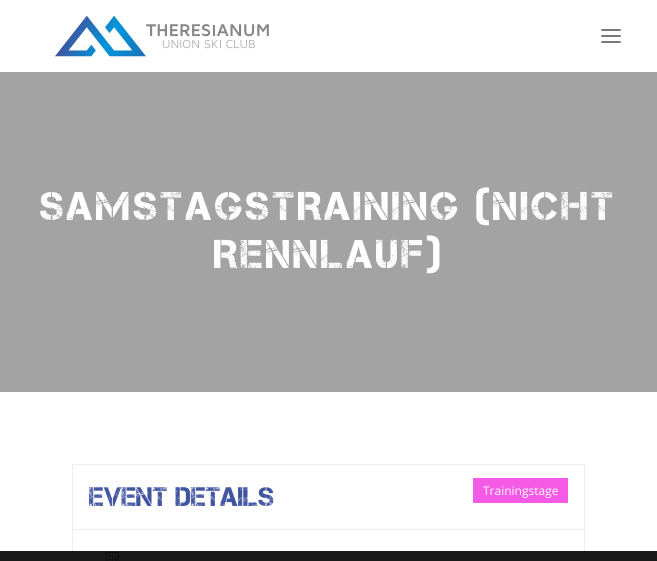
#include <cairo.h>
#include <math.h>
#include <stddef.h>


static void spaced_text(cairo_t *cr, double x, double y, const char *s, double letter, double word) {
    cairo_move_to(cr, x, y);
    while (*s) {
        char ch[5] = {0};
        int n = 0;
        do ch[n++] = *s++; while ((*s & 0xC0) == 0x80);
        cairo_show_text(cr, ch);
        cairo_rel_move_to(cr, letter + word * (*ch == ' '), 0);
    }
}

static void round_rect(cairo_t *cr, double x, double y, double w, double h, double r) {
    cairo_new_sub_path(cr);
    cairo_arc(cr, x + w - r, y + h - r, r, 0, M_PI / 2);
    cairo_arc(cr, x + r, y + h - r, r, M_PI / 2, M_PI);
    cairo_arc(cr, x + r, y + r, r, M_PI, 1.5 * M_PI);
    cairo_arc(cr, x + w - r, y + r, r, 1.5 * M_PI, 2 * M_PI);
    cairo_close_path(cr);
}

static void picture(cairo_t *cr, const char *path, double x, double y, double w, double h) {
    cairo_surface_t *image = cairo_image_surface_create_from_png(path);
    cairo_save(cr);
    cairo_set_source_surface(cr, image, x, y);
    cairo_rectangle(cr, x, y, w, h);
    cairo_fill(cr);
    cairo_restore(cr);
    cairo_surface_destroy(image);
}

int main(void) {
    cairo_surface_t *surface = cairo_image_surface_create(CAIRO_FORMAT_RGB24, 657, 561);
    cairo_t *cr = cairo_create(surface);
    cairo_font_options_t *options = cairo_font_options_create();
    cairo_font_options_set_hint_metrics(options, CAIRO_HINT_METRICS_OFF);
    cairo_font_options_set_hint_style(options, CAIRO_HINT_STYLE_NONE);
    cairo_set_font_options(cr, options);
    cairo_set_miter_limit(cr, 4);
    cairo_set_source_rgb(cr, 0.639, 0.639, 0.639);
    cairo_paint(cr);
    cairo_set_source_rgb(cr, 1, 1, 1);
    cairo_rectangle(cr, 0, 0, 657, 72);
    cairo_fill(cr);
    picture(cr, "img1.png", 55, 15, 214, 42);
    cairo_set_source_rgb(cr, 0.478, 0.478, 0.478);
    round_rect(cr, 601, 35, 20, 2, 1);
    cairo_fill(cr);
    round_rect(cr, 601, 29, 20, 2, 1);
    cairo_fill(cr);
    round_rect(cr, 601, 41, 20, 2, 1);
    cairo_fill(cr);
    cairo_select_font_face(cr, "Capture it", CAIRO_FONT_SLANT_NORMAL, CAIRO_FONT_WEIGHT_NORMAL);
    cairo_set_font_size(cr, 40);
    cairo_set_source_rgb(cr, 1, 1, 1);
    spaced_text(cr, 40, 220, "SAMSTAGSTRAINING (NICHT", 3.2, 0);
    spaced_text(cr, 214, 268, "RENNLAUF)", 3.2, 0);
    cairo_rectangle(cr, 0, 392, 657, 159);
    cairo_fill(cr);
    cairo_set_source_rgb(cr, 0.098, 0.098, 0.098);
    cairo_rectangle(cr, 0, 551, 657, 10);
    cairo_fill(cr);
    cairo_rectangle(cr, 72.5, 464.5, 512, 65);
    cairo_set_source_rgb(cr, 0.933, 0.933, 0.933);
    cairo_set_line_width(cr, 1);
    cairo_stroke(cr);
    cairo_set_font_size(cr, 26.75);
    cairo_set_source_rgb(cr, 0.251, 0.329, 0.627);
    cairo_move_to(cr, 89, 506);
    cairo_show_text(cr, "Event details");
    cairo_set_source_rgb(cr, 0.957, 0.353, 0.898);
    cairo_rectangle(cr, 473, 478, 95, 25);
    cairo_fill(cr);
    cairo_select_font_face(cr, "Open Sans", CAIRO_FONT_SLANT_NORMAL, CAIRO_FONT_WEIGHT_NORMAL);
    cairo_set_font_size(cr, 12);
    cairo_set_source_rgb(cr, 1, 1, 1);
    cairo_move_to(cr, 483, 495);
    cairo_show_text(cr, "Trainingstage");
    cairo_set_source_rgb(cr, 0.933, 0.933, 0.933);
    cairo_rectangle(cr, 584, 530, 1, 21);
    cairo_fill(cr);
    cairo_rectangle(cr, 72, 530, 1, 21);
    cairo_fill(cr);
    picture(cr, "img2.png", 106, 550, 13, 11);
    cairo_surface_write_to_png(surface, "page.png");
    cairo_font_options_destroy(options);
    cairo_destroy(cr);
    cairo_surface_destroy(surface);
    return 0;
}
